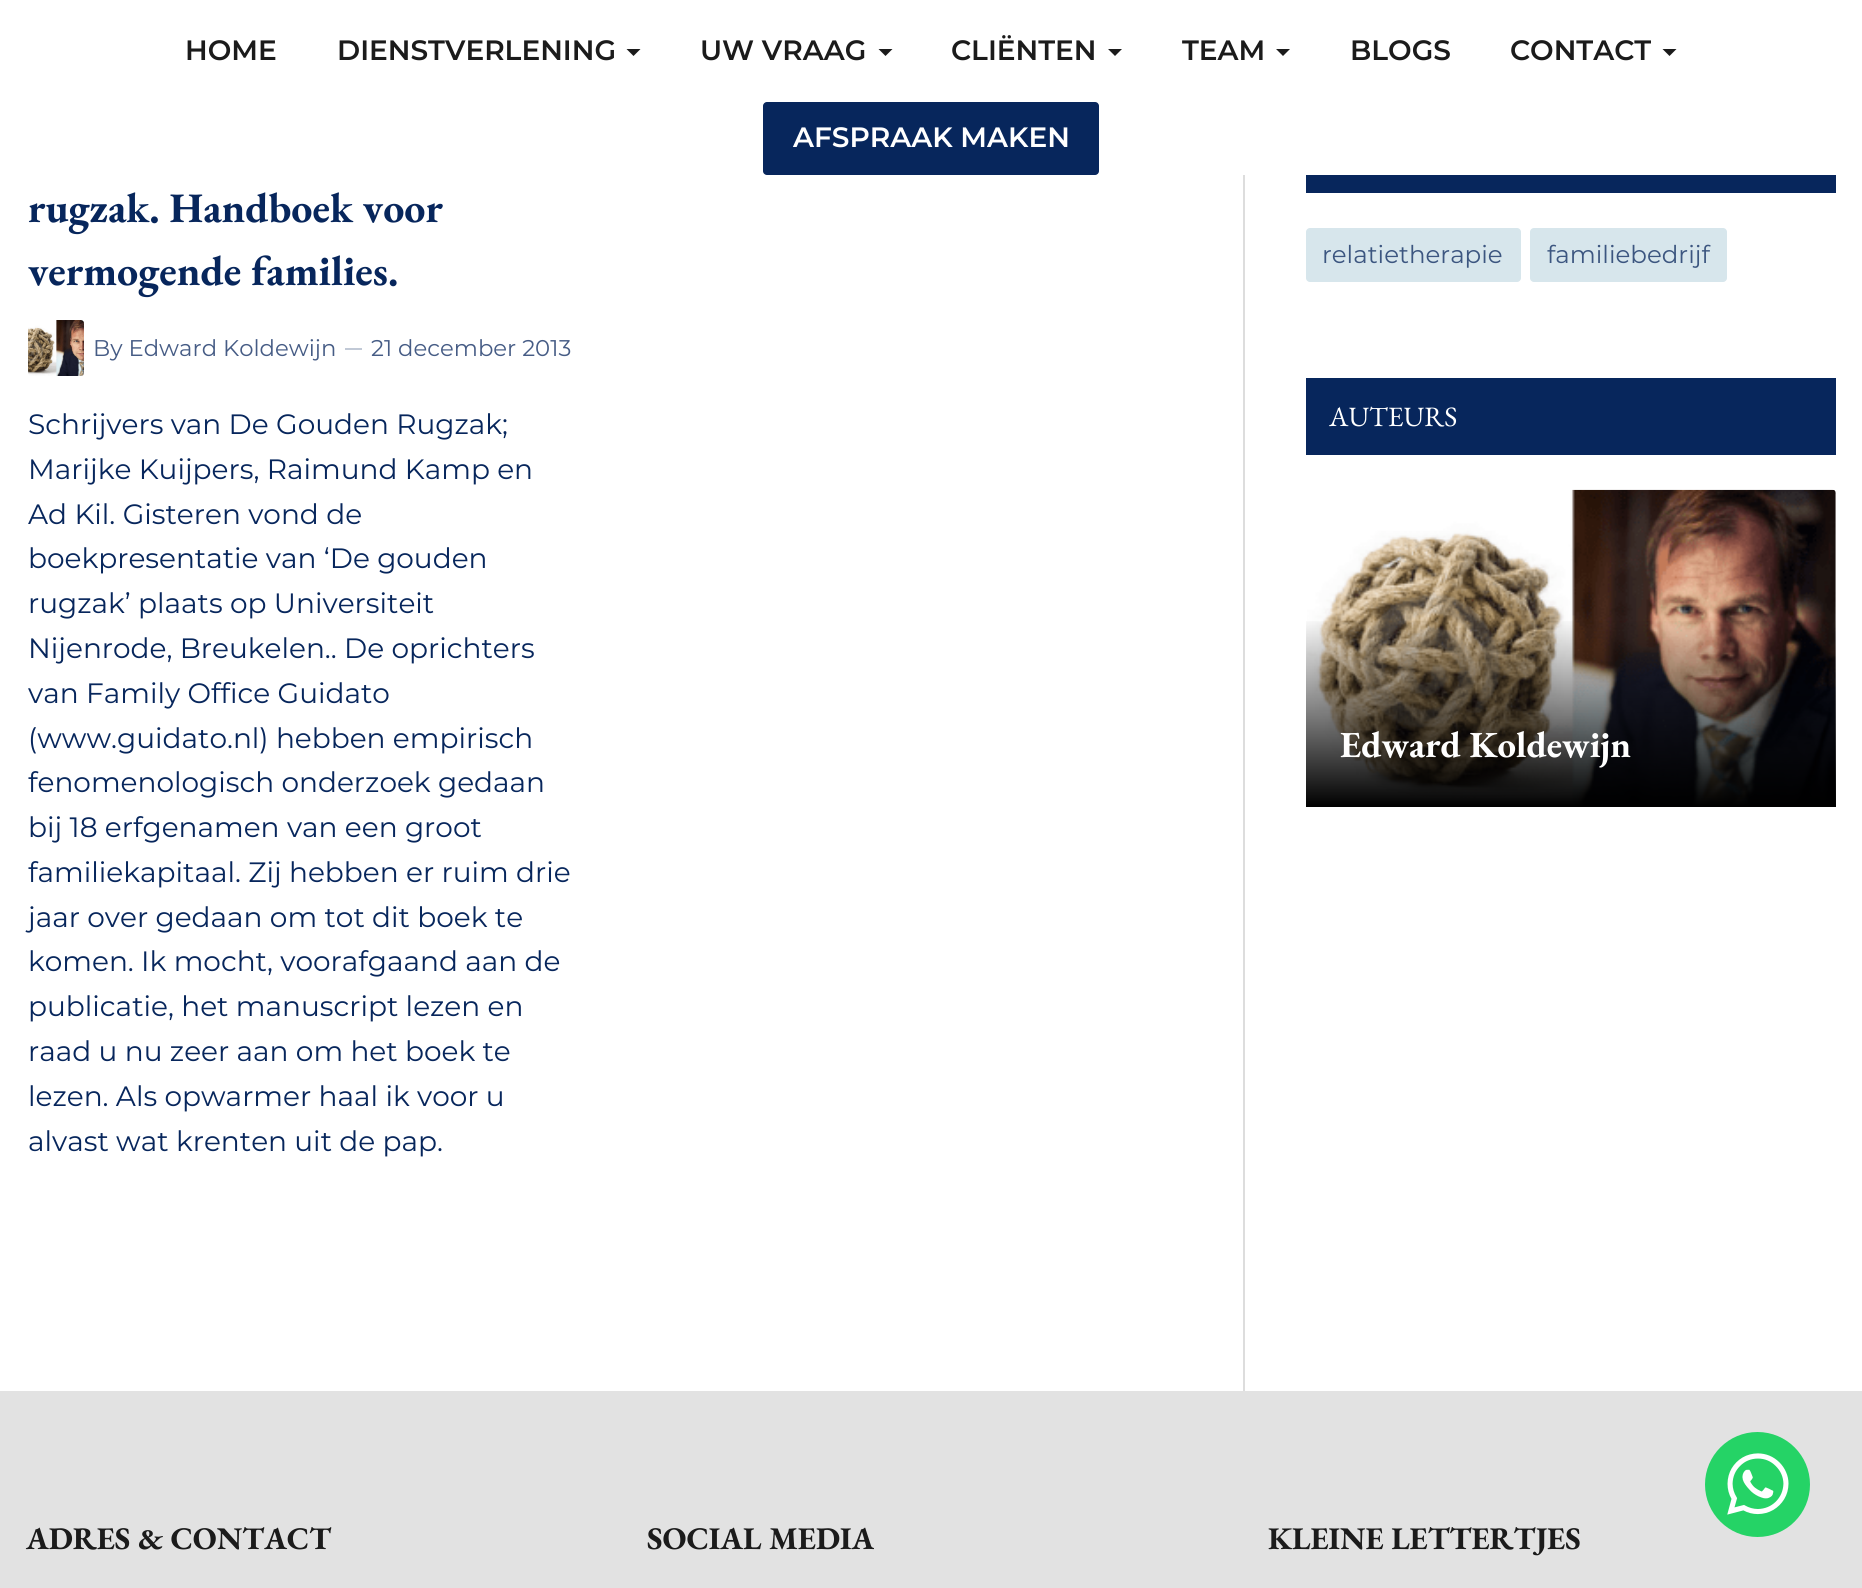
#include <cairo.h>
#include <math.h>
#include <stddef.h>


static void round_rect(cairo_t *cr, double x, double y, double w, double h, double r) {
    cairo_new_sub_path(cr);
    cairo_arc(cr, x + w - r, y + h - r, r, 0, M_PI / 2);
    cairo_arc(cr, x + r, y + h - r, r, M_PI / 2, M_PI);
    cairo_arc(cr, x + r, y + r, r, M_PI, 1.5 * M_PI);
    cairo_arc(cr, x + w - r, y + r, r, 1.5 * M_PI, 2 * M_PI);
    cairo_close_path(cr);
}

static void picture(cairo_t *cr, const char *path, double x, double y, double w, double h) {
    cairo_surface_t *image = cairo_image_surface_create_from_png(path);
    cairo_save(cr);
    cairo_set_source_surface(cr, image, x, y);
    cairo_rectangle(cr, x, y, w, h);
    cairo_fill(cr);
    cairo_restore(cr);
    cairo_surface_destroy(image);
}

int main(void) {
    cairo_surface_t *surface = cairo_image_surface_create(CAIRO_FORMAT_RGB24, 1862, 1588);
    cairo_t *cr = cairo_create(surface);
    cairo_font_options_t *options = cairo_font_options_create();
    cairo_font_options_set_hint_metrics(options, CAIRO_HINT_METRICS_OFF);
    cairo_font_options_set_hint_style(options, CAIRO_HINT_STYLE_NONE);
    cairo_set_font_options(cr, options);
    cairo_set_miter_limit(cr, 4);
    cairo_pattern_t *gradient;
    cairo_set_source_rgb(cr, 1, 1, 1);
    cairo_paint(cr);
    cairo_select_font_face(cr, "Montserrat SemiBold", CAIRO_FONT_SLANT_NORMAL, CAIRO_FONT_WEIGHT_NORMAL);
    cairo_set_font_size(cr, 28);
    cairo_set_source_rgb(cr, 0.106, 0.106, 0.106);
    cairo_move_to(cr, 185, 60);
    cairo_show_text(cr, "HOME");
    cairo_move_to(cr, 337, 60);
    cairo_show_text(cr, "DIENSTVERLENING");
    cairo_new_path(cr);
    cairo_move_to(cr, 626.5, 49);
    cairo_line_to(cr, 640.5, 49);
    cairo_line_to(cr, 633.5, 56);
    cairo_close_path(cr);
    cairo_fill(cr);
    cairo_move_to(cr, 700, 60);
    cairo_show_text(cr, "UW VRAAG");
    cairo_new_path(cr);
    cairo_move_to(cr, 878.5, 49);
    cairo_line_to(cr, 892.5, 49);
    cairo_line_to(cr, 885.5, 56);
    cairo_close_path(cr);
    cairo_fill(cr);
    cairo_move_to(cr, 951, 60);
    cairo_show_text(cr, "CLIËNTEN");
    cairo_new_path(cr);
    cairo_move_to(cr, 1108, 49);
    cairo_line_to(cr, 1122, 49);
    cairo_line_to(cr, 1115, 56);
    cairo_close_path(cr);
    cairo_fill(cr);
    cairo_move_to(cr, 1182, 60);
    cairo_show_text(cr, "TEAM");
    cairo_new_path(cr);
    cairo_move_to(cr, 1276, 49);
    cairo_line_to(cr, 1290, 49);
    cairo_line_to(cr, 1283, 56);
    cairo_close_path(cr);
    cairo_fill(cr);
    cairo_move_to(cr, 1350, 60);
    cairo_show_text(cr, "BLOGS");
    cairo_move_to(cr, 1510, 60);
    cairo_show_text(cr, "CONTACT");
    cairo_new_path(cr);
    cairo_move_to(cr, 1662.5, 49);
    cairo_line_to(cr, 1676.5, 49);
    cairo_line_to(cr, 1669.5, 56);
    cairo_close_path(cr);
    cairo_fill(cr);
    cairo_set_source_rgb(cr, 0.031, 0.149, 0.361);
    round_rect(cr, 763, 102, 336, 73, 4);
    cairo_fill(cr);
    cairo_set_source_rgb(cr, 1, 1, 1);
    cairo_move_to(cr, 793, 147);
    cairo_show_text(cr, "AFSPRAAK MAKEN");
    cairo_select_font_face(cr, "EB Garamond", CAIRO_FONT_SLANT_NORMAL, CAIRO_FONT_WEIGHT_BOLD);
    cairo_set_font_size(cr, 42);
    cairo_set_source_rgb(cr, 0.031, 0.149, 0.361);
    cairo_move_to(cr, 28, 222);
    cairo_show_text(cr, "rugzak. Handboek voor");
    cairo_move_to(cr, 28, 285);
    cairo_show_text(cr, "vermogende families.");
    picture(cr, "img1.png", 28, 320, 56, 56);
    cairo_select_font_face(cr, "Montserrat", CAIRO_FONT_SLANT_NORMAL, CAIRO_FONT_WEIGHT_NORMAL);
    cairo_set_font_size(cr, 22.75);
    cairo_set_source_rgb(cr, 0.275, 0.361, 0.522);
    cairo_move_to(cr, 93, 356);
    cairo_show_text(cr, "By Edward Koldewijn");
    cairo_set_source_rgb(cr, 0.757, 0.788, 0.839);
    cairo_rectangle(cr, 345, 348, 17, 2);
    cairo_fill(cr);
    cairo_set_source_rgb(cr, 0.275, 0.361, 0.522);
    cairo_move_to(cr, 371, 356);
    cairo_show_text(cr, "21 december 2013");
    cairo_set_font_size(cr, 28);
    cairo_set_source_rgb(cr, 0.031, 0.149, 0.361);
    cairo_move_to(cr, 28, 434);
    cairo_show_text(cr, "Schrijvers van De Gouden Rugzak;");
    cairo_move_to(cr, 28, 479);
    cairo_show_text(cr, "Marijke Kuijpers, Raimund Kamp en");
    cairo_move_to(cr, 28, 524);
    cairo_show_text(cr, "Ad Kil. Gisteren vond de");
    cairo_move_to(cr, 28, 568);
    cairo_show_text(cr, "boekpresentatie van ‘De gouden");
    cairo_move_to(cr, 28, 613);
    cairo_show_text(cr, "rugzak’ plaats op Universiteit");
    cairo_move_to(cr, 28, 658);
    cairo_show_text(cr, "Nijenrode, Breukelen.. De oprichters");
    cairo_move_to(cr, 28, 703);
    cairo_show_text(cr, "van Family Office Guidato");
    cairo_move_to(cr, 28, 748);
    cairo_show_text(cr, "(www.guidato.nl) hebben empirisch");
    cairo_move_to(cr, 28, 792);
    cairo_show_text(cr, "fenomenologisch onderzoek gedaan");
    cairo_move_to(cr, 28, 837);
    cairo_show_text(cr, "bij 18 erfgenamen van een groot");
    cairo_move_to(cr, 28, 882);
    cairo_show_text(cr, "familiekapitaal. Zij hebben er ruim drie");
    cairo_move_to(cr, 28, 927);
    cairo_show_text(cr, "jaar over gedaan om tot dit boek te");
    cairo_move_to(cr, 28, 971);
    cairo_show_text(cr, "komen. Ik mocht, voorafgaand aan de");
    cairo_move_to(cr, 28, 1016);
    cairo_show_text(cr, "publicatie, het manuscript lezen en");
    cairo_move_to(cr, 28, 1061);
    cairo_show_text(cr, "raad u nu zeer aan om het boek te");
    cairo_move_to(cr, 28, 1106);
    cairo_show_text(cr, "lezen. Als opwarmer haal ik voor u");
    cairo_move_to(cr, 28, 1151);
    cairo_show_text(cr, "alvast wat krenten uit de pap.");
    cairo_set_source_rgb(cr, 0.867, 0.867, 0.867);
    cairo_rectangle(cr, 1243, 175, 2, 1216);
    cairo_fill(cr);
    cairo_set_source_rgb(cr, 0.031, 0.149, 0.361);
    cairo_rectangle(cr, 1306, 175, 530, 18);
    cairo_fill(cr);
    cairo_set_source_rgb(cr, 0.843, 0.902, 0.922);
    round_rect(cr, 1306, 228, 215, 54, 4);
    cairo_fill(cr);
    cairo_set_font_size(cr, 24.5);
    cairo_set_source_rgb(cr, 0.235, 0.337, 0.502);
    cairo_move_to(cr, 1322, 263);
    cairo_show_text(cr, "relatietherapie");
    cairo_set_source_rgb(cr, 0.843, 0.902, 0.922);
    round_rect(cr, 1530, 228, 197, 54, 4);
    cairo_fill(cr);
    cairo_set_source_rgb(cr, 0.235, 0.337, 0.502);
    cairo_move_to(cr, 1547, 263);
    cairo_show_text(cr, "familiebedrijf");
    cairo_set_source_rgb(cr, 0.031, 0.149, 0.361);
    cairo_rectangle(cr, 1306, 378, 530, 77);
    cairo_fill(cr);
    cairo_select_font_face(cr, "EB Garamond", CAIRO_FONT_SLANT_NORMAL, CAIRO_FONT_WEIGHT_NORMAL);
    cairo_set_font_size(cr, 28);
    cairo_set_source_rgb(cr, 1, 1, 1);
    cairo_move_to(cr, 1329, 426);
    cairo_show_text(cr, "AUTEURS");
    picture(cr, "img2.png", 1307, 489, 529, 317);
    gradient = cairo_pattern_create_linear(1571, 490, 1571, 807);
    cairo_pattern_add_color_stop_rgba(gradient, 0.4, 0, 0, 0, 0);
    cairo_pattern_add_color_stop_rgba(gradient, 1, 0, 0, 0, 1);
    cairo_set_source(cr, gradient);
    cairo_pattern_destroy(gradient);
    cairo_rectangle(cr, 1306, 621, 530, 186);
    cairo_fill(cr);
    cairo_select_font_face(cr, "EB Garamond", CAIRO_FONT_SLANT_NORMAL, CAIRO_FONT_WEIGHT_BOLD);
    cairo_set_font_size(cr, 36.75);
    cairo_set_source_rgb(cr, 1, 1, 1);
    cairo_move_to(cr, 1340, 757);
    cairo_show_text(cr, "Edward Koldewijn");
    cairo_set_source_rgb(cr, 0.886, 0.886, 0.886);
    cairo_rectangle(cr, 0, 1391, 1862, 197);
    cairo_fill(cr);
    cairo_set_source_rgb(cr, 0.145, 0.827, 0.4);
    cairo_arc(cr, 1757.5, 1484.5, 52.5, 0, 2 * M_PI);
    cairo_fill(cr);
    picture(cr, "img3.png", 1727, 1453, 62, 62);
    cairo_set_font_size(cr, 31.5);
    cairo_set_source_rgb(cr, 0.106, 0.106, 0.106);
    cairo_move_to(cr, 26, 1549);
    cairo_show_text(cr, "ADRES & CONTACT");
    cairo_move_to(cr, 647, 1549);
    cairo_show_text(cr, "SOCIAL MEDIA");
    cairo_move_to(cr, 1268, 1549);
    cairo_show_text(cr, "KLEINE LETTERTJES");
    cairo_surface_write_to_png(surface, "page.png");
    cairo_font_options_destroy(options);
    cairo_destroy(cr);
    cairo_surface_destroy(surface);
    return 0;
}
